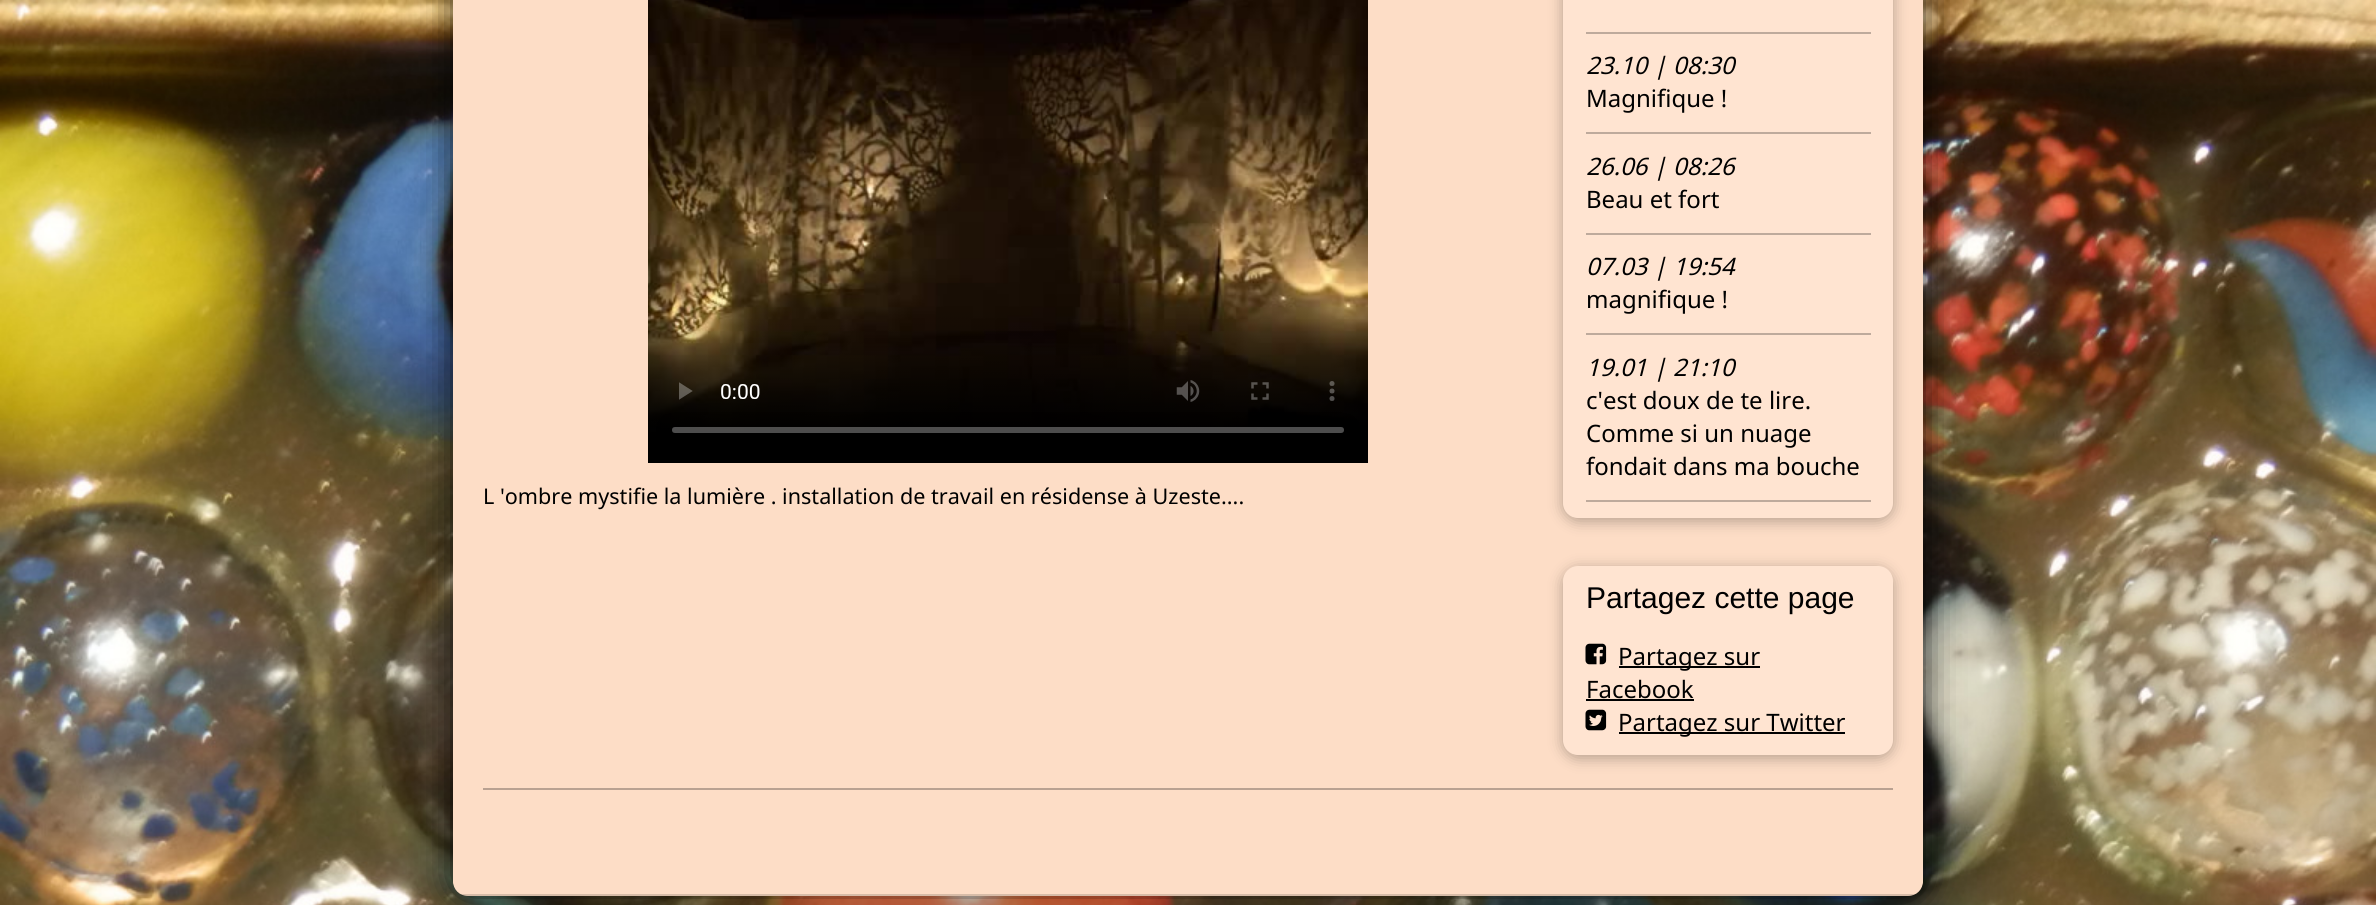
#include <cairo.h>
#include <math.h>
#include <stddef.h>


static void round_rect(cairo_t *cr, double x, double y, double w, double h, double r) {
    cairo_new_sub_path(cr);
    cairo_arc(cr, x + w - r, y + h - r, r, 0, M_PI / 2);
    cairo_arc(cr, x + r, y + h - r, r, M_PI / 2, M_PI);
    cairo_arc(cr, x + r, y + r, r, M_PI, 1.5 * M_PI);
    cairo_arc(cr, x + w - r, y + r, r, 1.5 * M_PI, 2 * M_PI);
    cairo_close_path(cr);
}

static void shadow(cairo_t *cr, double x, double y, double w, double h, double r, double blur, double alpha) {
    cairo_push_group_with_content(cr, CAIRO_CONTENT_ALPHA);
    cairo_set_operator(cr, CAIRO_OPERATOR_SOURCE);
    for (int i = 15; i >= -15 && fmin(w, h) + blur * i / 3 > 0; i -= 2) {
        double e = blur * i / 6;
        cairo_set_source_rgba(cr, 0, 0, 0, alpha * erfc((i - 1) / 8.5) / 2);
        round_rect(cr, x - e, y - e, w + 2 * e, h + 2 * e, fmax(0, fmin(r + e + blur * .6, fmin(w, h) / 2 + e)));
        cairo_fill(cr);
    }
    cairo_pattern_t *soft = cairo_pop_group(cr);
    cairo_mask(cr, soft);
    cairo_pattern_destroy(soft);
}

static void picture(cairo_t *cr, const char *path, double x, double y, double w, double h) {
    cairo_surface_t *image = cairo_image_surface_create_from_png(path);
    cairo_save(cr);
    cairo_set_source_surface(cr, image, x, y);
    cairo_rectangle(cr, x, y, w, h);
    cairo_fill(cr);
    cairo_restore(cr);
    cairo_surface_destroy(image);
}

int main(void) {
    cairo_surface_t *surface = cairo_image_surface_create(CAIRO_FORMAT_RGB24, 2376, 905);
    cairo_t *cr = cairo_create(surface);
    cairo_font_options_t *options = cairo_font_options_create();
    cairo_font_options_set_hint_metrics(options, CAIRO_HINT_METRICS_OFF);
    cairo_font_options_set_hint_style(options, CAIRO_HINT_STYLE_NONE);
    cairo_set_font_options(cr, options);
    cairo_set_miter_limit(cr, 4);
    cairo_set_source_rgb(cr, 1, 1, 1);
    cairo_paint(cr);
    picture(cr, "img1.png", 0, 0, 2376, 905);
    cairo_set_source_rgb(cr, 0, 0, 0);
    shadow(cr, 453, -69, 1470, 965, 15, 18, 0.8);
    cairo_set_source_rgb(cr, 0.992, 0.867, 0.776);
    cairo_new_path(cr);
    cairo_move_to(cr, 453, -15);
    cairo_line_to(cr, 1923, -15);
    cairo_line_to(cr, 1923, 881);
    cairo_curve_to(cr, 1923, 889.5, 1916.5, 896, 1908, 896);
    cairo_line_to(cr, 468, 896);
    cairo_curve_to(cr, 459.5, 896, 453, 889.5, 453, 881);
    cairo_close_path(cr);
    cairo_fill(cr);
    cairo_set_source_rgba(cr, 0, 0, 0, 0.15);
    cairo_rectangle(cr, 461, 894, 1455, 2);
    cairo_fill(cr);
    picture(cr, "img2.png", 648, 0, 720, 463);
    cairo_select_font_face(cr, "Noto Sans", CAIRO_FONT_SLANT_NORMAL, CAIRO_FONT_WEIGHT_NORMAL);
    cairo_set_font_size(cr, 21.6);
    cairo_set_source_rgb(cr, 0, 0, 0);
    cairo_move_to(cr, 483, 504);
    cairo_show_text(cr, "L 'ombre mystifie la lumière . installation de travail en résidense à Uzeste....");
    cairo_set_source_rgb(cr, 0, 0, 0);
    shadow(cr, 1563, -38, 330, 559, 15, 7.5, 0.29);
    cairo_set_source_rgb(cr, 1, 0.894, 0.82);
    round_rect(cr, 1563, -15, 330, 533, 15);
    cairo_fill(cr);
    cairo_set_source_rgb(cr, 0.745, 0.667, 0.612);
    cairo_rectangle(cr, 1586, 32, 285, 2);
    cairo_fill(cr);
    cairo_rectangle(cr, 1586, 132, 285, 2);
    cairo_fill(cr);
    cairo_select_font_face(cr, "Noto Sans", CAIRO_FONT_SLANT_ITALIC, CAIRO_FONT_WEIGHT_NORMAL);
    cairo_set_font_size(cr, 24);
    cairo_set_source_rgb(cr, 0, 0, 0);
    cairo_move_to(cr, 1586, 74);
    cairo_show_text(cr, "23.10 | 08:30");
    cairo_select_font_face(cr, "Noto Sans", CAIRO_FONT_SLANT_NORMAL, CAIRO_FONT_WEIGHT_NORMAL);
    cairo_move_to(cr, 1586, 107);
    cairo_show_text(cr, "Magnifique !");
    cairo_set_source_rgb(cr, 0.745, 0.667, 0.612);
    cairo_rectangle(cr, 1586, 233, 285, 2);
    cairo_fill(cr);
    cairo_select_font_face(cr, "Noto Sans", CAIRO_FONT_SLANT_ITALIC, CAIRO_FONT_WEIGHT_NORMAL);
    cairo_set_source_rgb(cr, 0, 0, 0);
    cairo_move_to(cr, 1586, 175);
    cairo_show_text(cr, "26.06 | 08:26");
    cairo_select_font_face(cr, "Noto Sans", CAIRO_FONT_SLANT_NORMAL, CAIRO_FONT_WEIGHT_NORMAL);
    cairo_move_to(cr, 1586, 208);
    cairo_show_text(cr, "Beau et fort");
    cairo_set_source_rgb(cr, 0.745, 0.667, 0.612);
    cairo_rectangle(cr, 1586, 333, 285, 2);
    cairo_fill(cr);
    cairo_select_font_face(cr, "Noto Sans", CAIRO_FONT_SLANT_ITALIC, CAIRO_FONT_WEIGHT_NORMAL);
    cairo_set_source_rgb(cr, 0, 0, 0);
    cairo_move_to(cr, 1586, 275);
    cairo_show_text(cr, "07.03 | 19:54");
    cairo_select_font_face(cr, "Noto Sans", CAIRO_FONT_SLANT_NORMAL, CAIRO_FONT_WEIGHT_NORMAL);
    cairo_move_to(cr, 1586, 308);
    cairo_show_text(cr, "magnifique !");
    cairo_set_source_rgb(cr, 0.745, 0.667, 0.612);
    cairo_rectangle(cr, 1586, 500, 285, 2);
    cairo_fill(cr);
    cairo_select_font_face(cr, "Noto Sans", CAIRO_FONT_SLANT_ITALIC, CAIRO_FONT_WEIGHT_NORMAL);
    cairo_set_source_rgb(cr, 0, 0, 0);
    cairo_move_to(cr, 1586, 376);
    cairo_show_text(cr, "19.01 | 21:10");
    cairo_select_font_face(cr, "Noto Sans", CAIRO_FONT_SLANT_NORMAL, CAIRO_FONT_WEIGHT_NORMAL);
    cairo_move_to(cr, 1586, 409);
    cairo_show_text(cr, "c'est doux de te lire.");
    cairo_move_to(cr, 1586, 442);
    cairo_show_text(cr, "Comme si un nuage");
    cairo_move_to(cr, 1586, 475);
    cairo_show_text(cr, "fondait dans ma bouche");
    cairo_set_source_rgb(cr, 0, 0, 0);
    shadow(cr, 1563, 569, 330, 189, 15, 7.5, 0.29);
    cairo_set_source_rgb(cr, 1, 0.894, 0.82);
    round_rect(cr, 1563, 566, 330, 189, 15);
    cairo_fill(cr);
    cairo_select_font_face(cr, "Liberation Sans", CAIRO_FONT_SLANT_NORMAL, CAIRO_FONT_WEIGHT_NORMAL);
    cairo_set_font_size(cr, 30);
    cairo_set_source_rgb(cr, 0, 0, 0);
    cairo_move_to(cr, 1586, 608);
    cairo_show_text(cr, "Partagez cette page");
    picture(cr, "img3.png", 1585, 643, 22, 22);
    cairo_rectangle(cr, 1619, 666, 141, 2);
    cairo_fill(cr);
    cairo_select_font_face(cr, "Noto Sans", CAIRO_FONT_SLANT_NORMAL, CAIRO_FONT_WEIGHT_NORMAL);
    cairo_set_font_size(cr, 24);
    cairo_move_to(cr, 1618, 665);
    cairo_show_text(cr, "Partagez sur");
    cairo_move_to(cr, 1586, 698);
    cairo_show_text(cr, "Facebook");
    cairo_rectangle(cr, 1586, 699, 108, 2);
    cairo_fill(cr);
    picture(cr, "img4.png", 1585, 709, 22, 22);
    cairo_rectangle(cr, 1619, 732, 226, 2);
    cairo_fill(cr);
    cairo_move_to(cr, 1618, 731);
    cairo_show_text(cr, "Partagez sur Twitter");
    cairo_set_source_rgb(cr, 0.992, 0.867, 0.776);
    cairo_new_path(cr);
    cairo_move_to(cr, 453, 788);
    cairo_line_to(cr, 1923, 788);
    cairo_line_to(cr, 1923, 879);
    cairo_curve_to(cr, 1923, 887.5, 1916.5, 894, 1908, 894);
    cairo_line_to(cr, 468, 894);
    cairo_curve_to(cr, 459.5, 894, 453, 887.5, 453, 879);
    cairo_close_path(cr);
    cairo_fill(cr);
    cairo_set_source_rgb(cr, 0.725, 0.631, 0.569);
    cairo_rectangle(cr, 483, 788, 1410, 2);
    cairo_fill(cr);
    cairo_surface_write_to_png(surface, "page.png");
    cairo_font_options_destroy(options);
    cairo_destroy(cr);
    cairo_surface_destroy(surface);
    return 0;
}
